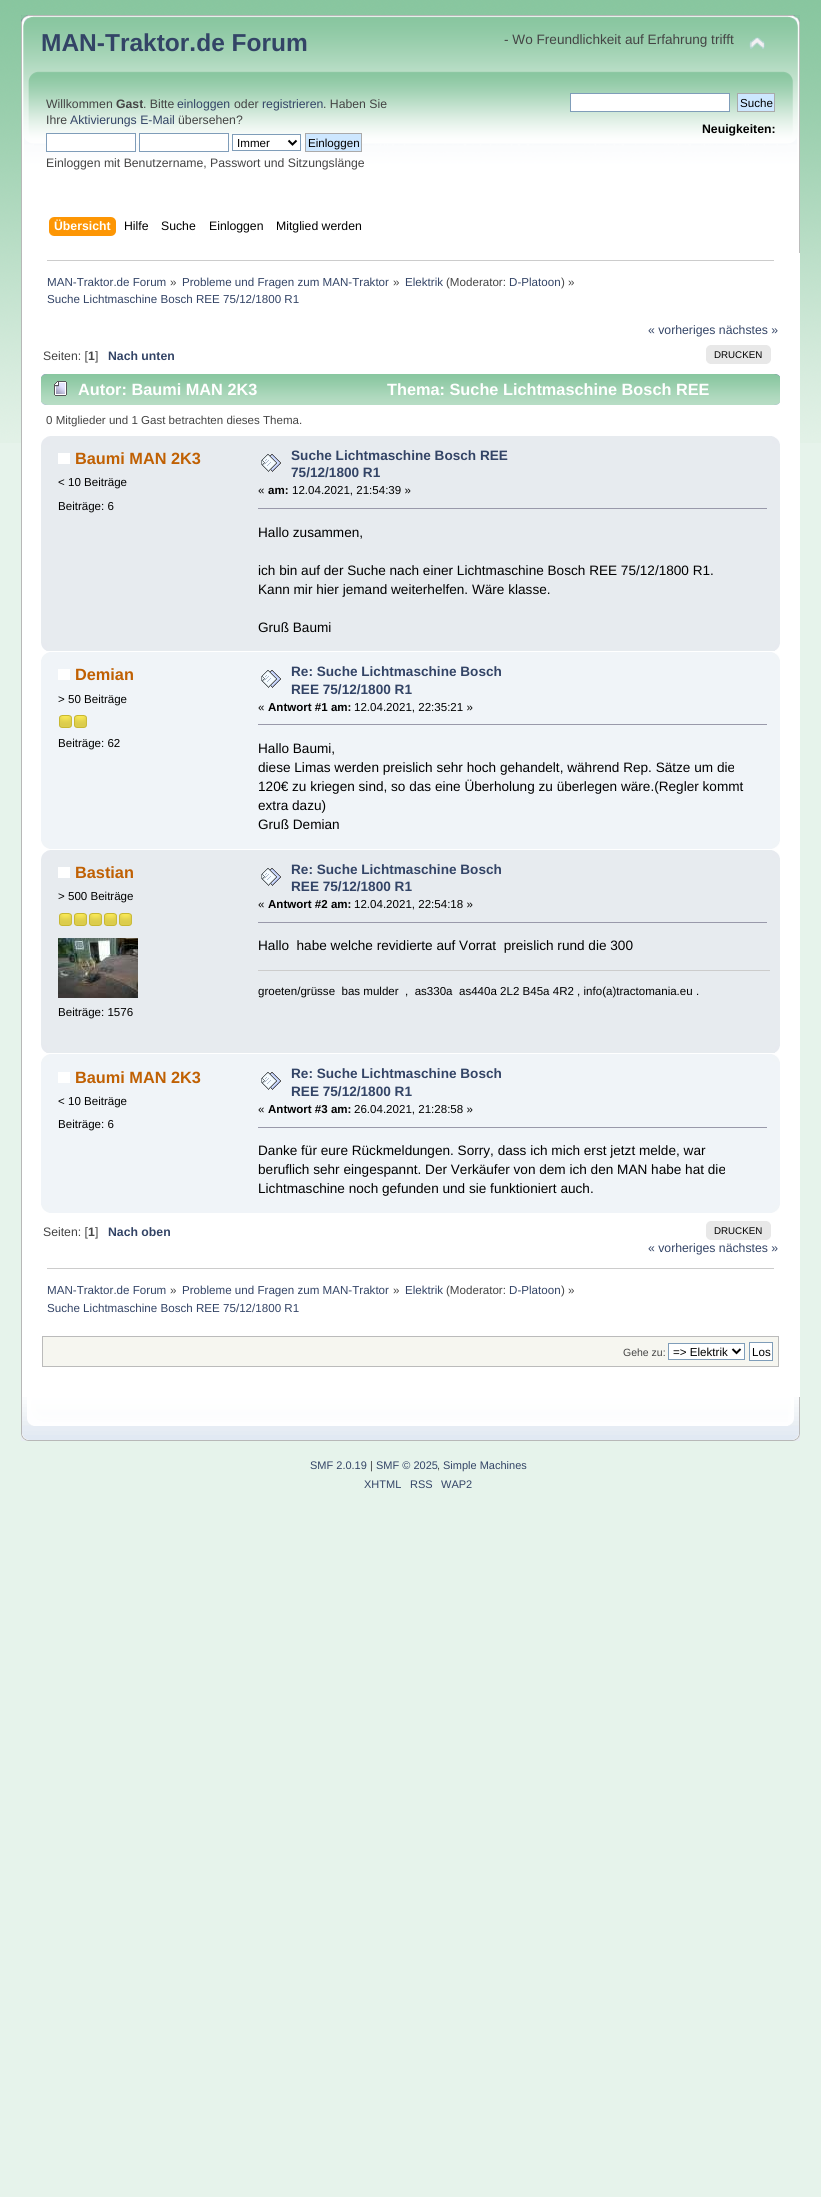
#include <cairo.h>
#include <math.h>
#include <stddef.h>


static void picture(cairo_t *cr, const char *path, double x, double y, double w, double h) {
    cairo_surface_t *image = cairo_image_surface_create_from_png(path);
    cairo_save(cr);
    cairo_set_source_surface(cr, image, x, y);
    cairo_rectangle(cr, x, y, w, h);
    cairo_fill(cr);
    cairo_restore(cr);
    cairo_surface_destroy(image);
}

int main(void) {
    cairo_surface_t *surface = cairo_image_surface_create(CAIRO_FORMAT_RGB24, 821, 2197);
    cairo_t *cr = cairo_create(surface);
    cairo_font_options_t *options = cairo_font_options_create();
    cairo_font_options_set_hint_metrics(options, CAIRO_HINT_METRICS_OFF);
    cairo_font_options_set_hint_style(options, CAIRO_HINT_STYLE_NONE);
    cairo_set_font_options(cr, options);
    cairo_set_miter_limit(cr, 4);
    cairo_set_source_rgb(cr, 0.902, 0.953, 0.918);
    cairo_paint(cr);
    picture(cr, "img1.png", 0, 0, 821, 443);
    picture(cr, "img2.png", 21, 15, 763, 238);
    picture(cr, "img3.png", 784, 15, 16, 238);
    cairo_select_font_face(cr, "Liberation Sans", CAIRO_FONT_SLANT_NORMAL, CAIRO_FONT_WEIGHT_BOLD);
    cairo_set_font_size(cr, 24.5);
    cairo_set_source_rgb(cr, 0.2, 0.267, 0.4);
    cairo_move_to(cr, 41, 51);
    cairo_show_text(cr, "MAN-Traktor.de Forum");
    cairo_select_font_face(cr, "Liberation Sans", CAIRO_FONT_SLANT_NORMAL, CAIRO_FONT_WEIGHT_NORMAL);
    cairo_set_font_size(cr, 13.6);
    cairo_set_source_rgb(cr, 0.267, 0.267, 0.267);
    cairo_move_to(cr, 504, 44);
    cairo_show_text(cr, "- Wo Freundlichkeit auf Erfahrung trifft");
    picture(cr, "img4.png", 749, 37, 16, 12);
    cairo_set_font_size(cr, 12.25);
    cairo_move_to(cr, 46, 108);
    cairo_show_text(cr, "Willkommen");
    cairo_select_font_face(cr, "Liberation Sans", CAIRO_FONT_SLANT_NORMAL, CAIRO_FONT_WEIGHT_BOLD);
    cairo_move_to(cr, 116, 108);
    cairo_show_text(cr, "Gast");
    cairo_select_font_face(cr, "Liberation Sans", CAIRO_FONT_SLANT_NORMAL, CAIRO_FONT_WEIGHT_NORMAL);
    cairo_move_to(cr, 143, 108);
    cairo_show_text(cr, ". Bitte");
    cairo_set_source_rgb(cr, 0.2, 0.267, 0.4);
    cairo_move_to(cr, 177, 108);
    cairo_show_text(cr, "einloggen");
    cairo_set_source_rgb(cr, 0.267, 0.267, 0.267);
    cairo_move_to(cr, 234, 108);
    cairo_show_text(cr, "oder");
    cairo_set_source_rgb(cr, 0.2, 0.267, 0.4);
    cairo_move_to(cr, 262, 108);
    cairo_show_text(cr, "registrieren");
    cairo_set_source_rgb(cr, 0.267, 0.267, 0.267);
    cairo_move_to(cr, 323, 108);
    cairo_show_text(cr, ". Haben Sie");
    cairo_move_to(cr, 46, 124);
    cairo_show_text(cr, "Ihre");
    cairo_set_source_rgb(cr, 0.2, 0.267, 0.4);
    cairo_move_to(cr, 70, 124);
    cairo_show_text(cr, "Aktivierungs E-Mail");
    cairo_set_source_rgb(cr, 0.267, 0.267, 0.267);
    cairo_move_to(cr, 178, 124);
    cairo_show_text(cr, "übersehen?");
    cairo_set_source_rgb(cr, 1, 1, 1);
    cairo_rectangle(cr, 46.5, 133.5, 89, 18);
    cairo_fill_preserve(cr);
    cairo_set_source_rgb(cr, 0.498, 0.616, 0.725);
    cairo_set_line_width(cr, 1);
    cairo_stroke(cr);
    cairo_set_source_rgb(cr, 1, 1, 1);
    cairo_rectangle(cr, 139.5, 133.5, 89, 18);
    cairo_fill_preserve(cr);
    cairo_set_source_rgb(cr, 0.498, 0.616, 0.725);
    cairo_stroke(cr);
    cairo_set_source_rgb(cr, 1, 1, 1);
    cairo_rectangle(cr, 232.5, 134.5, 68, 16);
    cairo_fill_preserve(cr);
    cairo_set_source_rgb(cr, 0.498, 0.616, 0.725);
    cairo_stroke(cr);
    cairo_new_path(cr);
    cairo_move_to(cr, 288.5, 140.5);
    cairo_line_to(cr, 292.5, 144.5);
    cairo_line_to(cr, 296.5, 140.5);
    cairo_set_source_rgb(cr, 0, 0, 0);
    cairo_set_line_width(cr, 2);
    cairo_stroke(cr);
    cairo_set_font_size(cr, 11.6);
    cairo_move_to(cr, 237, 147);
    cairo_show_text(cr, "Immer");
    cairo_set_source_rgb(cr, 0.804, 0.906, 1);
    cairo_rectangle(cr, 305.5, 133.5, 56, 18);
    cairo_fill_preserve(cr);
    cairo_set_source_rgb(cr, 0.667, 0.667, 0.667);
    cairo_set_line_width(cr, 1);
    cairo_stroke(cr);
    cairo_set_source_rgb(cr, 0, 0, 0);
    cairo_move_to(cr, 308, 147);
    cairo_show_text(cr, "Einloggen");
    cairo_set_font_size(cr, 12.25);
    cairo_set_source_rgb(cr, 0.267, 0.267, 0.267);
    cairo_move_to(cr, 46, 167);
    cairo_show_text(cr, "Einloggen mit Benutzername, Passwort und Sitzungslänge");
    cairo_set_source_rgb(cr, 1, 1, 1);
    cairo_rectangle(cr, 570.5, 93.5, 159, 18);
    cairo_fill_preserve(cr);
    cairo_set_source_rgb(cr, 0.498, 0.616, 0.725);
    cairo_stroke(cr);
    cairo_set_source_rgb(cr, 0.804, 0.906, 1);
    cairo_rectangle(cr, 737.5, 93.5, 37, 18);
    cairo_fill_preserve(cr);
    cairo_set_source_rgb(cr, 0.667, 0.667, 0.667);
    cairo_stroke(cr);
    cairo_set_font_size(cr, 11.6);
    cairo_set_source_rgb(cr, 0, 0, 0);
    cairo_move_to(cr, 740, 107);
    cairo_show_text(cr, "Suche");
    cairo_select_font_face(cr, "Liberation Sans", CAIRO_FONT_SLANT_NORMAL, CAIRO_FONT_WEIGHT_BOLD);
    cairo_set_font_size(cr, 12.25);
    cairo_move_to(cr, 702, 133);
    cairo_show_text(cr, "Neuigkeiten:");
    picture(cr, "img5.png", 54, 217, 62, 19);
    picture(cr, "img6.png", 49, 217, 5, 19);
    cairo_set_source_rgb(cr, 1, 1, 1);
    cairo_move_to(cr, 54, 230);
    cairo_show_text(cr, "Übersicht");
    cairo_select_font_face(cr, "Liberation Sans", CAIRO_FONT_SLANT_NORMAL, CAIRO_FONT_WEIGHT_NORMAL);
    cairo_set_source_rgb(cr, 0, 0, 0);
    cairo_move_to(cr, 124, 230);
    cairo_show_text(cr, "Hilfe");
    cairo_move_to(cr, 161, 230);
    cairo_show_text(cr, "Suche");
    cairo_move_to(cr, 209, 230);
    cairo_show_text(cr, "Einloggen");
    cairo_move_to(cr, 276, 230);
    cairo_show_text(cr, "Mitglied werden");
    cairo_set_source_rgb(cr, 1, 1, 1);
    cairo_rectangle(cr, 22, 253, 778, 1144);
    cairo_fill(cr);
    cairo_set_source_rgb(cr, 0.718, 0.718, 0.718);
    cairo_rectangle(cr, 21, 253, 1, 1144);
    cairo_fill(cr);
    cairo_set_source_rgb(cr, 0.8, 0.8, 0.8);
    cairo_rectangle(cr, 47, 260, 727, 1);
    cairo_fill(cr);
    cairo_set_font_size(cr, 11.6);
    cairo_set_source_rgb(cr, 0.2, 0.267, 0.4);
    cairo_move_to(cr, 47, 286);
    cairo_show_text(cr, "MAN-Traktor.de Forum");
    cairo_set_source_rgb(cr, 0.267, 0.267, 0.267);
    cairo_move_to(cr, 170, 286);
    cairo_show_text(cr, "»");
    cairo_set_source_rgb(cr, 0.2, 0.267, 0.4);
    cairo_move_to(cr, 182, 286);
    cairo_show_text(cr, "Probleme und Fragen zum MAN-Traktor");
    cairo_set_source_rgb(cr, 0.267, 0.267, 0.267);
    cairo_move_to(cr, 393, 286);
    cairo_show_text(cr, "»");
    cairo_set_source_rgb(cr, 0.2, 0.267, 0.4);
    cairo_move_to(cr, 405, 286);
    cairo_show_text(cr, "Elektrik");
    cairo_set_source_rgb(cr, 0.267, 0.267, 0.267);
    cairo_move_to(cr, 446, 286);
    cairo_show_text(cr, "(Moderator:");
    cairo_set_source_rgb(cr, 0.2, 0.267, 0.4);
    cairo_move_to(cr, 509, 286);
    cairo_show_text(cr, "D-Platoon");
    cairo_set_source_rgb(cr, 0.267, 0.267, 0.267);
    cairo_move_to(cr, 561, 286);
    cairo_show_text(cr, ") »");
    cairo_set_source_rgb(cr, 0.2, 0.267, 0.4);
    cairo_move_to(cr, 47, 303);
    cairo_show_text(cr, "Suche Lichtmaschine Bosch REE 75/12/1800 R1");
    cairo_set_font_size(cr, 12.25);
    cairo_move_to(cr, 648, 334);
    cairo_show_text(cr, "« vorheriges nächstes »");
    cairo_set_source_rgb(cr, 0.267, 0.267, 0.267);
    cairo_move_to(cr, 43, 360);
    cairo_show_text(cr, "Seiten: [");
    cairo_select_font_face(cr, "Liberation Sans", CAIRO_FONT_SLANT_NORMAL, CAIRO_FONT_WEIGHT_BOLD);
    cairo_move_to(cr, 88, 360);
    cairo_show_text(cr, "1");
    cairo_select_font_face(cr, "Liberation Sans", CAIRO_FONT_SLANT_NORMAL, CAIRO_FONT_WEIGHT_NORMAL);
    cairo_move_to(cr, 95, 360);
    cairo_show_text(cr, "]");
    cairo_select_font_face(cr, "Liberation Sans", CAIRO_FONT_SLANT_NORMAL, CAIRO_FONT_WEIGHT_BOLD);
    cairo_set_source_rgb(cr, 0.2, 0.267, 0.4);
    cairo_move_to(cr, 108, 360);
    cairo_show_text(cr, "Nach unten");
    cairo_set_source_rgb(cr, 0.91, 0.91, 0.91);
    cairo_rectangle(cr, 710, 345, 57, 19);
    cairo_fill(cr);
    picture(cr, "img7.png", 706, 345, 4, 19);
    picture(cr, "img8.png", 767, 345, 4, 19);
    cairo_select_font_face(cr, "Liberation Sans", CAIRO_FONT_SLANT_NORMAL, CAIRO_FONT_WEIGHT_NORMAL);
    cairo_set_font_size(cr, 9.75);
    cairo_set_source_rgb(cr, 0, 0, 0);
    cairo_move_to(cr, 714, 358);
    cairo_show_text(cr, "DRUCKEN");
    cairo_set_source_rgb(cr, 0.6, 0.671, 0.749);
    cairo_rectangle(cr, 41, 374, 6, 4);
    cairo_fill(cr);
    picture(cr, "img9.png", 41, 374, 733, 31);
    picture(cr, "img10.png", 774, 374, 6, 31);
    picture(cr, "img11.png", 54, 381, 13, 15);
    cairo_select_font_face(cr, "Liberation Sans", CAIRO_FONT_SLANT_NORMAL, CAIRO_FONT_WEIGHT_BOLD);
    cairo_set_font_size(cr, 16.3);
    cairo_set_source_rgb(cr, 1, 1, 1);
    cairo_move_to(cr, 78, 395);
    cairo_show_text(cr, "Autor: Baumi MAN 2K3");
    cairo_move_to(cr, 387, 395);
    cairo_show_text(cr, "Thema: Suche Lichtmaschine Bosch REE");
    cairo_select_font_face(cr, "Liberation Sans", CAIRO_FONT_SLANT_NORMAL, CAIRO_FONT_WEIGHT_NORMAL);
    cairo_set_font_size(cr, 11.55);
    cairo_set_source_rgb(cr, 0.267, 0.267, 0.267);
    cairo_move_to(cr, 46, 424);
    cairo_show_text(cr, "0 Mitglieder und 1 Gast betrachten dieses Thema.");
    cairo_set_source_rgb(cr, 0.906, 0.918, 0.937);
    cairo_rectangle(cr, 41, 436, 739, 215);
    cairo_fill(cr);
    picture(cr, "img12.png", 41, 436, 9, 9);
    picture(cr, "img13.png", 772, 436, 8, 8);
    cairo_set_source_rgb(cr, 1, 1, 1);
    cairo_rectangle(cr, 58, 453, 12, 11);
    cairo_fill(cr);
    cairo_select_font_face(cr, "Liberation Sans", CAIRO_FONT_SLANT_NORMAL, CAIRO_FONT_WEIGHT_BOLD);
    cairo_set_font_size(cr, 16.3);
    cairo_set_source_rgb(cr, 0.753, 0.376, 0.008);
    cairo_move_to(cr, 75, 464);
    cairo_show_text(cr, "Baumi MAN 2K3");
    cairo_select_font_face(cr, "Liberation Sans", CAIRO_FONT_SLANT_NORMAL, CAIRO_FONT_WEIGHT_NORMAL);
    cairo_set_font_size(cr, 11.55);
    cairo_set_source_rgb(cr, 0, 0, 0);
    cairo_move_to(cr, 58, 486);
    cairo_show_text(cr, "< 10 Beiträge");
    cairo_move_to(cr, 58, 510);
    cairo_show_text(cr, "Beiträge: 6");
    picture(cr, "img14.png", 261, 454, 20, 18);
    cairo_select_font_face(cr, "Liberation Sans", CAIRO_FONT_SLANT_NORMAL, CAIRO_FONT_WEIGHT_BOLD);
    cairo_set_font_size(cr, 13.6);
    cairo_set_source_rgb(cr, 0.2, 0.267, 0.4);
    cairo_move_to(cr, 291, 460);
    cairo_show_text(cr, "Suche Lichtmaschine Bosch REE");
    cairo_move_to(cr, 291, 477);
    cairo_show_text(cr, "75/12/1800 R1");
    cairo_select_font_face(cr, "Liberation Sans", CAIRO_FONT_SLANT_NORMAL, CAIRO_FONT_WEIGHT_NORMAL);
    cairo_set_font_size(cr, 11.55);
    cairo_set_source_rgb(cr, 0, 0, 0);
    cairo_move_to(cr, 258, 494);
    cairo_show_text(cr, "«");
    cairo_select_font_face(cr, "Liberation Sans", CAIRO_FONT_SLANT_NORMAL, CAIRO_FONT_WEIGHT_BOLD);
    cairo_move_to(cr, 268, 494);
    cairo_show_text(cr, "am:");
    cairo_select_font_face(cr, "Liberation Sans", CAIRO_FONT_SLANT_NORMAL, CAIRO_FONT_WEIGHT_NORMAL);
    cairo_move_to(cr, 292, 494);
    cairo_show_text(cr, "12.04.2021, 21:54:39 »");
    cairo_set_source_rgb(cr, 0.6, 0.6, 0.667);
    cairo_rectangle(cr, 258, 508, 509, 1);
    cairo_fill(cr);
    cairo_set_font_size(cr, 13.6);
    cairo_set_source_rgb(cr, 0, 0, 0);
    cairo_move_to(cr, 258, 537);
    cairo_show_text(cr, "Hallo zusammen,");
    cairo_move_to(cr, 258, 575);
    cairo_show_text(cr, "ich bin auf der Suche nach einer Lichtmaschine Bosch REE 75/12/1800 R1.");
    cairo_move_to(cr, 258, 594);
    cairo_show_text(cr, "Kann mir hier jemand weiterhelfen. Wäre klasse.");
    cairo_move_to(cr, 258, 632);
    cairo_show_text(cr, "Gruß Baumi");
    picture(cr, "img15.png", 41, 643, 6, 8);
    picture(cr, "img16.png", 775, 644, 5, 7);
    cairo_set_source_rgb(cr, 0.941, 0.957, 0.969);
    cairo_rectangle(cr, 41, 652, 739, 197);
    cairo_fill(cr);
    picture(cr, "img17.png", 41, 652, 8, 8);
    picture(cr, "img18.png", 772, 652, 8, 8);
    cairo_set_source_rgb(cr, 1, 1, 1);
    cairo_rectangle(cr, 58, 669, 12, 11);
    cairo_fill(cr);
    cairo_select_font_face(cr, "Liberation Sans", CAIRO_FONT_SLANT_NORMAL, CAIRO_FONT_WEIGHT_BOLD);
    cairo_set_font_size(cr, 16.3);
    cairo_set_source_rgb(cr, 0.753, 0.376, 0.008);
    cairo_move_to(cr, 75, 680);
    cairo_show_text(cr, "Demian");
    cairo_select_font_face(cr, "Liberation Sans", CAIRO_FONT_SLANT_NORMAL, CAIRO_FONT_WEIGHT_NORMAL);
    cairo_set_font_size(cr, 11.55);
    cairo_set_source_rgb(cr, 0, 0, 0);
    cairo_move_to(cr, 58, 703);
    cairo_show_text(cr, "> 50 Beiträge");
    picture(cr, "img19.png", 59, 715, 13, 13);
    picture(cr, "img19.png", 74, 715, 13, 13);
    cairo_move_to(cr, 58, 747);
    cairo_show_text(cr, "Beiträge: 62");
    picture(cr, "img20.png", 261, 670, 20, 18);
    cairo_select_font_face(cr, "Liberation Sans", CAIRO_FONT_SLANT_NORMAL, CAIRO_FONT_WEIGHT_BOLD);
    cairo_set_font_size(cr, 13.6);
    cairo_set_source_rgb(cr, 0.2, 0.267, 0.4);
    cairo_move_to(cr, 291, 676);
    cairo_show_text(cr, "Re: Suche Lichtmaschine Bosch");
    cairo_move_to(cr, 291, 694);
    cairo_show_text(cr, "REE 75/12/1800 R1");
    cairo_select_font_face(cr, "Liberation Sans", CAIRO_FONT_SLANT_NORMAL, CAIRO_FONT_WEIGHT_NORMAL);
    cairo_set_font_size(cr, 11.55);
    cairo_set_source_rgb(cr, 0, 0, 0);
    cairo_move_to(cr, 258, 711);
    cairo_show_text(cr, "«");
    cairo_select_font_face(cr, "Liberation Sans", CAIRO_FONT_SLANT_NORMAL, CAIRO_FONT_WEIGHT_BOLD);
    cairo_move_to(cr, 268, 711);
    cairo_show_text(cr, "Antwort #1 am:");
    cairo_select_font_face(cr, "Liberation Sans", CAIRO_FONT_SLANT_NORMAL, CAIRO_FONT_WEIGHT_NORMAL);
    cairo_move_to(cr, 354, 711);
    cairo_show_text(cr, "12.04.2021, 22:35:21 »");
    cairo_set_source_rgb(cr, 0.6, 0.6, 0.667);
    cairo_rectangle(cr, 258, 724, 509, 1);
    cairo_fill(cr);
    cairo_set_font_size(cr, 13.6);
    cairo_set_source_rgb(cr, 0, 0, 0);
    cairo_move_to(cr, 258, 753);
    cairo_show_text(cr, "Hallo Baumi,");
    cairo_move_to(cr, 258, 772);
    cairo_show_text(cr, "diese Limas werden preislich sehr hoch gehandelt, während Rep. Sätze um die");
    cairo_move_to(cr, 258, 791);
    cairo_show_text(cr, "120€ zu kriegen sind, so das eine Überholung zu überlegen wäre.(Regler kommt");
    cairo_move_to(cr, 258, 810);
    cairo_show_text(cr, "extra dazu)");
    cairo_move_to(cr, 258, 829);
    cairo_show_text(cr, "Gruß Demian");
    picture(cr, "img21.png", 41, 841, 8, 8);
    picture(cr, "img22.png", 772, 841, 8, 8);
    cairo_set_source_rgb(cr, 0.906, 0.918, 0.937);
    cairo_rectangle(cr, 41, 850, 739, 203);
    cairo_fill(cr);
    picture(cr, "img12.png", 41, 850, 9, 9);
    picture(cr, "img13.png", 772, 850, 8, 8);
    cairo_set_source_rgb(cr, 1, 1, 1);
    cairo_rectangle(cr, 58, 867, 12, 11);
    cairo_fill(cr);
    cairo_select_font_face(cr, "Liberation Sans", CAIRO_FONT_SLANT_NORMAL, CAIRO_FONT_WEIGHT_BOLD);
    cairo_set_font_size(cr, 16.3);
    cairo_set_source_rgb(cr, 0.753, 0.376, 0.008);
    cairo_move_to(cr, 75, 878);
    cairo_show_text(cr, "Bastian");
    cairo_select_font_face(cr, "Liberation Sans", CAIRO_FONT_SLANT_NORMAL, CAIRO_FONT_WEIGHT_NORMAL);
    cairo_set_font_size(cr, 11.55);
    cairo_set_source_rgb(cr, 0, 0, 0);
    cairo_move_to(cr, 58, 900);
    cairo_show_text(cr, "> 500 Beiträge");
    picture(cr, "img23.png", 59, 913, 13, 13);
    picture(cr, "img23.png", 74, 913, 13, 13);
    picture(cr, "img23.png", 89, 913, 13, 13);
    picture(cr, "img23.png", 104, 913, 13, 13);
    picture(cr, "img23.png", 119, 913, 13, 13);
    picture(cr, "img24.png", 58, 938, 80, 60);
    cairo_move_to(cr, 58, 1016);
    cairo_show_text(cr, "Beiträge: 1576");
    picture(cr, "img14.png", 261, 868, 20, 18);
    cairo_select_font_face(cr, "Liberation Sans", CAIRO_FONT_SLANT_NORMAL, CAIRO_FONT_WEIGHT_BOLD);
    cairo_set_font_size(cr, 13.6);
    cairo_set_source_rgb(cr, 0.2, 0.267, 0.4);
    cairo_move_to(cr, 291, 874);
    cairo_show_text(cr, "Re: Suche Lichtmaschine Bosch");
    cairo_move_to(cr, 291, 891);
    cairo_show_text(cr, "REE 75/12/1800 R1");
    cairo_select_font_face(cr, "Liberation Sans", CAIRO_FONT_SLANT_NORMAL, CAIRO_FONT_WEIGHT_NORMAL);
    cairo_set_font_size(cr, 11.55);
    cairo_set_source_rgb(cr, 0, 0, 0);
    cairo_move_to(cr, 258, 908);
    cairo_show_text(cr, "«");
    cairo_select_font_face(cr, "Liberation Sans", CAIRO_FONT_SLANT_NORMAL, CAIRO_FONT_WEIGHT_BOLD);
    cairo_move_to(cr, 268, 908);
    cairo_show_text(cr, "Antwort #2 am:");
    cairo_select_font_face(cr, "Liberation Sans", CAIRO_FONT_SLANT_NORMAL, CAIRO_FONT_WEIGHT_NORMAL);
    cairo_move_to(cr, 354, 908);
    cairo_show_text(cr, "12.04.2021, 22:54:18 »");
    cairo_set_source_rgb(cr, 0.6, 0.6, 0.667);
    cairo_rectangle(cr, 258, 922, 509, 1);
    cairo_fill(cr);
    cairo_set_font_size(cr, 13.6);
    cairo_set_source_rgb(cr, 0, 0, 0);
    cairo_move_to(cr, 258, 950);
    cairo_show_text(cr, "Hallo  habe welche revidierte auf Vorrat  preislich rund die 300");
    cairo_set_source_rgb(cr, 0.8, 0.8, 0.8);
    cairo_rectangle(cr, 258, 970, 512, 1);
    cairo_fill(cr);
    cairo_set_font_size(cr, 11.55);
    cairo_set_source_rgb(cr, 0, 0, 0);
    cairo_move_to(cr, 258, 995);
    cairo_show_text(cr, "groeten/grüsse  bas mulder  ,  as330a  as440a 2L2 B45a 4R2 , info(a)tractomania.eu .");
    picture(cr, "img15.png", 41, 1045, 6, 8);
    picture(cr, "img16.png", 775, 1046, 5, 7);
    cairo_set_source_rgb(cr, 0.941, 0.957, 0.969);
    cairo_rectangle(cr, 41, 1054, 739, 159);
    cairo_fill(cr);
    picture(cr, "img17.png", 41, 1054, 8, 8);
    picture(cr, "img18.png", 772, 1054, 8, 8);
    cairo_set_source_rgb(cr, 1, 1, 1);
    cairo_rectangle(cr, 58, 1072, 12, 11);
    cairo_fill(cr);
    cairo_select_font_face(cr, "Liberation Sans", CAIRO_FONT_SLANT_NORMAL, CAIRO_FONT_WEIGHT_BOLD);
    cairo_set_font_size(cr, 16.3);
    cairo_set_source_rgb(cr, 0.753, 0.376, 0.008);
    cairo_move_to(cr, 75, 1083);
    cairo_show_text(cr, "Baumi MAN 2K3");
    cairo_select_font_face(cr, "Liberation Sans", CAIRO_FONT_SLANT_NORMAL, CAIRO_FONT_WEIGHT_NORMAL);
    cairo_set_font_size(cr, 11.55);
    cairo_set_source_rgb(cr, 0, 0, 0);
    cairo_move_to(cr, 58, 1105);
    cairo_show_text(cr, "< 10 Beiträge");
    cairo_move_to(cr, 58, 1128);
    cairo_show_text(cr, "Beiträge: 6");
    picture(cr, "img20.png", 261, 1072, 20, 18);
    cairo_select_font_face(cr, "Liberation Sans", CAIRO_FONT_SLANT_NORMAL, CAIRO_FONT_WEIGHT_BOLD);
    cairo_set_font_size(cr, 13.6);
    cairo_set_source_rgb(cr, 0.2, 0.267, 0.4);
    cairo_move_to(cr, 291, 1078);
    cairo_show_text(cr, "Re: Suche Lichtmaschine Bosch");
    cairo_move_to(cr, 291, 1096);
    cairo_show_text(cr, "REE 75/12/1800 R1");
    cairo_select_font_face(cr, "Liberation Sans", CAIRO_FONT_SLANT_NORMAL, CAIRO_FONT_WEIGHT_NORMAL);
    cairo_set_font_size(cr, 11.55);
    cairo_set_source_rgb(cr, 0, 0, 0);
    cairo_move_to(cr, 258, 1113);
    cairo_show_text(cr, "«");
    cairo_select_font_face(cr, "Liberation Sans", CAIRO_FONT_SLANT_NORMAL, CAIRO_FONT_WEIGHT_BOLD);
    cairo_move_to(cr, 268, 1113);
    cairo_show_text(cr, "Antwort #3 am:");
    cairo_select_font_face(cr, "Liberation Sans", CAIRO_FONT_SLANT_NORMAL, CAIRO_FONT_WEIGHT_NORMAL);
    cairo_move_to(cr, 354, 1113);
    cairo_show_text(cr, "26.04.2021, 21:28:58 »");
    cairo_set_source_rgb(cr, 0.6, 0.6, 0.667);
    cairo_rectangle(cr, 258, 1127, 509, 1);
    cairo_fill(cr);
    cairo_set_font_size(cr, 13.6);
    cairo_set_source_rgb(cr, 0, 0, 0);
    cairo_move_to(cr, 258, 1155);
    cairo_show_text(cr, "Danke für eure Rückmeldungen. Sorry, dass ich mich erst jetzt melde, war");
    cairo_move_to(cr, 258, 1174);
    cairo_show_text(cr, "beruflich sehr eingespannt. Der Verkäufer von dem ich den MAN habe hat die");
    cairo_move_to(cr, 258, 1193);
    cairo_show_text(cr, "Lichtmaschine noch gefunden und sie funktioniert auch.");
    picture(cr, "img21.png", 41, 1205, 8, 8);
    picture(cr, "img22.png", 772, 1205, 8, 8);
    cairo_set_font_size(cr, 12.25);
    cairo_set_source_rgb(cr, 0.267, 0.267, 0.267);
    cairo_move_to(cr, 43, 1236);
    cairo_show_text(cr, "Seiten: [");
    cairo_select_font_face(cr, "Liberation Sans", CAIRO_FONT_SLANT_NORMAL, CAIRO_FONT_WEIGHT_BOLD);
    cairo_move_to(cr, 88, 1236);
    cairo_show_text(cr, "1");
    cairo_select_font_face(cr, "Liberation Sans", CAIRO_FONT_SLANT_NORMAL, CAIRO_FONT_WEIGHT_NORMAL);
    cairo_move_to(cr, 95, 1236);
    cairo_show_text(cr, "]");
    cairo_select_font_face(cr, "Liberation Sans", CAIRO_FONT_SLANT_NORMAL, CAIRO_FONT_WEIGHT_BOLD);
    cairo_set_source_rgb(cr, 0.2, 0.267, 0.4);
    cairo_move_to(cr, 108, 1236);
    cairo_show_text(cr, "Nach oben");
    cairo_set_source_rgb(cr, 0.91, 0.91, 0.91);
    cairo_rectangle(cr, 710, 1221, 57, 19);
    cairo_fill(cr);
    picture(cr, "img7.png", 706, 1221, 4, 19);
    picture(cr, "img8.png", 767, 1221, 4, 19);
    cairo_select_font_face(cr, "Liberation Sans", CAIRO_FONT_SLANT_NORMAL, CAIRO_FONT_WEIGHT_NORMAL);
    cairo_set_font_size(cr, 9.75);
    cairo_set_source_rgb(cr, 0, 0, 0);
    cairo_move_to(cr, 714, 1234);
    cairo_show_text(cr, "DRUCKEN");
    cairo_set_font_size(cr, 12.25);
    cairo_set_source_rgb(cr, 0.2, 0.267, 0.4);
    cairo_move_to(cr, 648, 1252);
    cairo_show_text(cr, "« vorheriges nächstes »");
    cairo_set_source_rgb(cr, 0.8, 0.8, 0.8);
    cairo_rectangle(cr, 47, 1268, 727, 1);
    cairo_fill(cr);
    cairo_set_font_size(cr, 11.6);
    cairo_set_source_rgb(cr, 0.2, 0.267, 0.4);
    cairo_move_to(cr, 47, 1294);
    cairo_show_text(cr, "MAN-Traktor.de Forum");
    cairo_set_source_rgb(cr, 0.267, 0.267, 0.267);
    cairo_move_to(cr, 170, 1294);
    cairo_show_text(cr, "»");
    cairo_set_source_rgb(cr, 0.2, 0.267, 0.4);
    cairo_move_to(cr, 182, 1294);
    cairo_show_text(cr, "Probleme und Fragen zum MAN-Traktor");
    cairo_set_source_rgb(cr, 0.267, 0.267, 0.267);
    cairo_move_to(cr, 393, 1294);
    cairo_show_text(cr, "»");
    cairo_set_source_rgb(cr, 0.2, 0.267, 0.4);
    cairo_move_to(cr, 405, 1294);
    cairo_show_text(cr, "Elektrik");
    cairo_set_source_rgb(cr, 0.267, 0.267, 0.267);
    cairo_move_to(cr, 446, 1294);
    cairo_show_text(cr, "(Moderator:");
    cairo_set_source_rgb(cr, 0.2, 0.267, 0.4);
    cairo_move_to(cr, 509, 1294);
    cairo_show_text(cr, "D-Platoon");
    cairo_set_source_rgb(cr, 0.267, 0.267, 0.267);
    cairo_move_to(cr, 561, 1294);
    cairo_show_text(cr, ") »");
    cairo_set_source_rgb(cr, 0.2, 0.267, 0.4);
    cairo_move_to(cr, 47, 1312);
    cairo_show_text(cr, "Suche Lichtmaschine Bosch REE 75/12/1800 R1");
    cairo_set_source_rgb(cr, 0.961, 0.961, 0.941);
    cairo_rectangle(cr, 42.5, 1336.5, 736, 30);
    cairo_fill_preserve(cr);
    cairo_set_source_rgb(cr, 0.733, 0.733, 0.733);
    cairo_stroke(cr);
    cairo_set_font_size(cr, 10.5);
    cairo_set_source_rgb(cr, 0.267, 0.267, 0.267);
    cairo_move_to(cr, 623, 1356);
    cairo_show_text(cr, "Gehe zu:");
    cairo_set_source_rgb(cr, 1, 1, 1);
    cairo_rectangle(cr, 668.5, 1343.5, 76, 16);
    cairo_fill_preserve(cr);
    cairo_set_source_rgb(cr, 0.498, 0.616, 0.725);
    cairo_stroke(cr);
    cairo_new_path(cr);
    cairo_move_to(cr, 732.5, 1349);
    cairo_line_to(cr, 736.5, 1353);
    cairo_line_to(cr, 740.5, 1349);
    cairo_set_source_rgb(cr, 0, 0, 0);
    cairo_set_line_width(cr, 2);
    cairo_stroke(cr);
    cairo_set_font_size(cr, 11.6);
    cairo_move_to(cr, 673, 1356);
    cairo_show_text(cr, "=> Elektrik");
    cairo_set_source_rgb(cr, 1, 1, 1);
    cairo_rectangle(cr, 749.5, 1342.5, 23, 18);
    cairo_fill_preserve(cr);
    cairo_set_source_rgb(cr, 0.498, 0.616, 0.725);
    cairo_set_line_width(cr, 1);
    cairo_stroke(cr);
    cairo_set_source_rgb(cr, 0, 0, 0);
    cairo_move_to(cr, 752, 1356);
    cairo_show_text(cr, "Los");
    picture(cr, "img25.png", 21, 1397, 767, 44);
    picture(cr, "img26.png", 788, 1397, 12, 44);
    cairo_set_font_size(cr, 11);
    cairo_set_source_rgb(cr, 0.2, 0.267, 0.4);
    cairo_move_to(cr, 310, 1469);
    cairo_show_text(cr, "SMF 2.0.19");
    cairo_set_source_rgb(cr, 0.267, 0.267, 0.267);
    cairo_move_to(cr, 370, 1469);
    cairo_show_text(cr, "|");
    cairo_set_source_rgb(cr, 0.2, 0.267, 0.4);
    cairo_move_to(cr, 376, 1469);
    cairo_show_text(cr, "SMF © 2025");
    cairo_set_source_rgb(cr, 0.267, 0.267, 0.267);
    cairo_move_to(cr, 437, 1469);
    cairo_show_text(cr, ",");
    cairo_set_source_rgb(cr, 0.2, 0.267, 0.4);
    cairo_move_to(cr, 443, 1469);
    cairo_show_text(cr, "Simple Machines");
    cairo_move_to(cr, 364, 1488);
    cairo_show_text(cr, "XHTML");
    cairo_move_to(cr, 410, 1488);
    cairo_show_text(cr, "RSS");
    cairo_move_to(cr, 441, 1488);
    cairo_show_text(cr, "WAP2");
    cairo_surface_write_to_png(surface, "page.png");
    cairo_font_options_destroy(options);
    cairo_destroy(cr);
    cairo_surface_destroy(surface);
    return 0;
}
